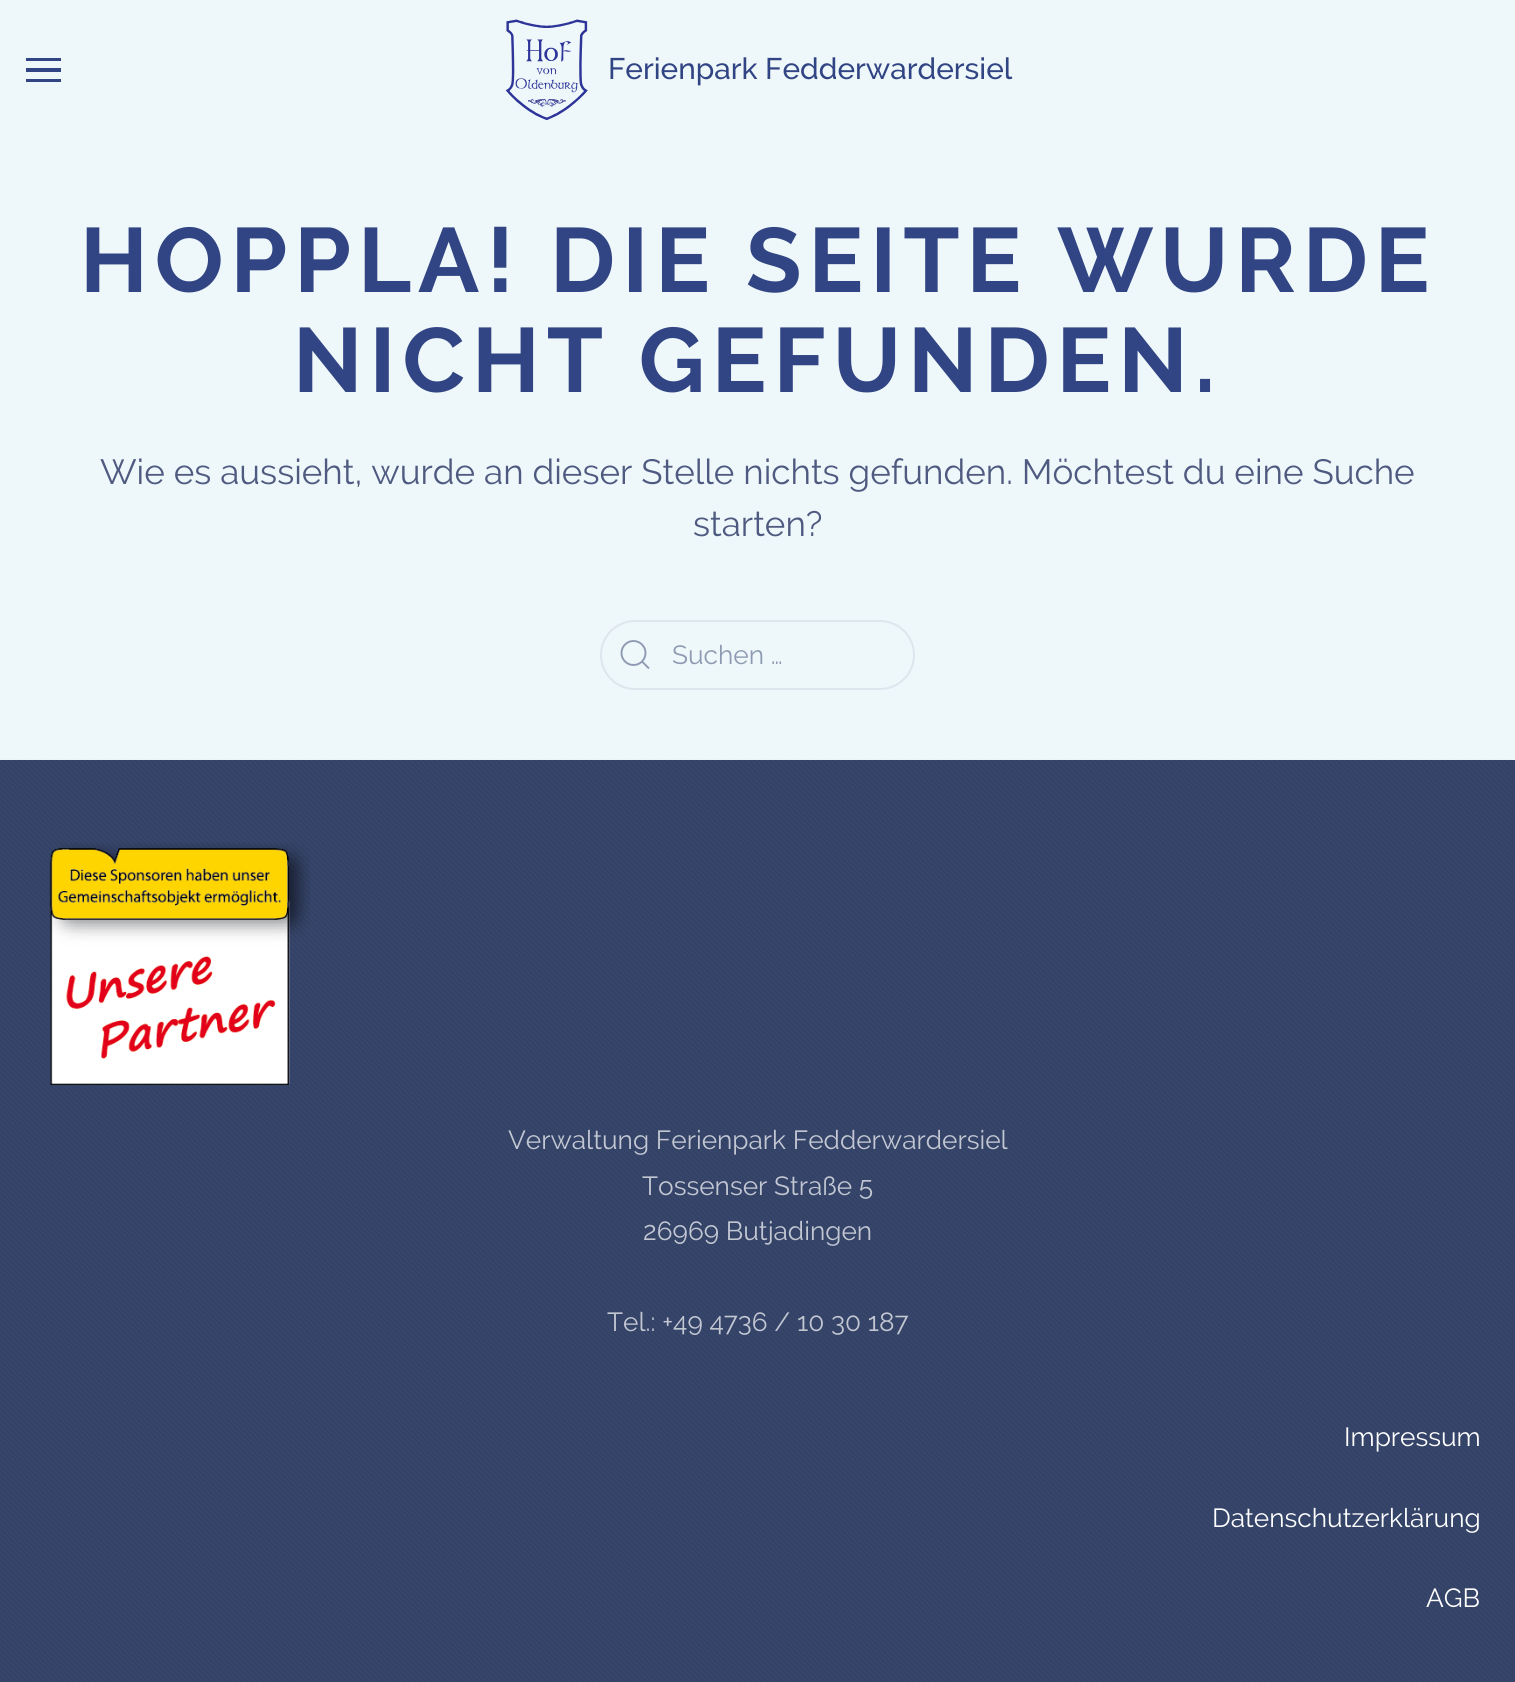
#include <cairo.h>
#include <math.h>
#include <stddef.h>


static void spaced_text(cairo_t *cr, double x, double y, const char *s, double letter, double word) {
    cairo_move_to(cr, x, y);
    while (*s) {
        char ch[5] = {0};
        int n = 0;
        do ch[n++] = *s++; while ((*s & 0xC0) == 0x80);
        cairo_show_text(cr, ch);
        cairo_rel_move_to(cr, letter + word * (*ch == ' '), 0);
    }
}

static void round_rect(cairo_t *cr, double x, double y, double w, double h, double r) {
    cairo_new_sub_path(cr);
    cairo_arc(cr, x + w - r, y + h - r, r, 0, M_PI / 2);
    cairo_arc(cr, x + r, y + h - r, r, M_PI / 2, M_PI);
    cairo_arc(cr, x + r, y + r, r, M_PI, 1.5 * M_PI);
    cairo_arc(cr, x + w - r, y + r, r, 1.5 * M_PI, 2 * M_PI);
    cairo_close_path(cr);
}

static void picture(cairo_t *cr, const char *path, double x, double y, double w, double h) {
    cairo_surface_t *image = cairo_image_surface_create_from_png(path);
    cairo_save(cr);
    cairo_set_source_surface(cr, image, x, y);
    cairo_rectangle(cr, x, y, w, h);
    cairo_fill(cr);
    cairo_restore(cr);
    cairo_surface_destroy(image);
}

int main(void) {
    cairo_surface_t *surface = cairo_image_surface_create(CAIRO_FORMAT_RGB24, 1515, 1682);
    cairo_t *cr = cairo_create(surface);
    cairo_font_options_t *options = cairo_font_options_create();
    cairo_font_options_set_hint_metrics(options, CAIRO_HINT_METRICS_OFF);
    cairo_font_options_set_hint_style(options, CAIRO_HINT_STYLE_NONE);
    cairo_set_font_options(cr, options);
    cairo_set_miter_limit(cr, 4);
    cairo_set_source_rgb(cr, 0.933, 0.965, 0.98);
    cairo_paint(cr);
    cairo_set_source_rgb(cr, 0.192, 0.267, 0.514);
    cairo_rectangle(cr, 26, 58, 35, 3);
    cairo_fill(cr);
    cairo_rectangle(cr, 26, 68, 35, 4);
    cairo_fill(cr);
    cairo_rectangle(cr, 26, 79, 35, 3);
    cairo_fill(cr);
    picture(cr, "img1.png", 505, 19, 83, 101);
    cairo_select_font_face(cr, "Raleway Medium", CAIRO_FONT_SLANT_NORMAL, CAIRO_FONT_WEIGHT_NORMAL);
    cairo_set_font_size(cr, 29.75);
    cairo_move_to(cr, 608, 79);
    cairo_show_text(cr, "Ferienpark Fedderwardersiel");
    cairo_select_font_face(cr, "Raleway", CAIRO_FONT_SLANT_NORMAL, CAIRO_FONT_WEIGHT_BOLD);
    cairo_set_font_size(cr, 91);
    spaced_text(cr, 80, 292, "HOPPLA! DIE SEITE WURDE", 7, 0);
    spaced_text(cr, 293, 392, "NICHT GEFUNDEN.", 7, 0);
    cairo_select_font_face(cr, "Raleway", CAIRO_FONT_SLANT_NORMAL, CAIRO_FONT_WEIGHT_NORMAL);
    cairo_set_font_size(cr, 35);
    cairo_set_source_rgb(cr, 0.31, 0.353, 0.502);
    cairo_move_to(cr, 100, 484);
    cairo_show_text(cr, "Wie es aussieht, wurde an dieser Stelle nichts gefunden. Möchtest du eine Suche");
    cairo_move_to(cr, 693, 536);
    cairo_show_text(cr, "starten?");
    round_rect(cr, 601, 621, 313, 68, 34);
    cairo_set_source_rgb(cr, 0.871, 0.902, 0.929);
    cairo_stroke(cr);
    cairo_arc(cr, 633.5, 653, 12, 0, 2 * M_PI);
    cairo_set_source_rgb(cr, 0.553, 0.604, 0.694);
    cairo_set_line_width(cr, 1.9);
    cairo_stroke(cr);
    cairo_new_path(cr);
    cairo_move_to(cr, 642, 661.5);
    cairo_line_to(cr, 649, 668.5);
    cairo_close_path(cr);
    cairo_stroke(cr);
    cairo_set_font_size(cr, 26.25);
    cairo_move_to(cr, 672, 664);
    cairo_show_text(cr, "Suchen …");
    cairo_set_source_rgb(cr, 0.216, 0.275, 0.424);
    cairo_rectangle(cr, 0, 760, 1515, 922);
    cairo_fill(cr);
    picture(cr, "img2.png", 0, 759, 1515, 923);
    picture(cr, "img3.png", 49, 843, 261, 242);
    cairo_set_source_rgb(cr, 0.761, 0.78, 0.824);
    cairo_move_to(cr, 508, 1149);
    cairo_show_text(cr, "Verwaltung Ferienpark Fedderwardersiel");
    cairo_move_to(cr, 642, 1195);
    cairo_show_text(cr, "Tossenser Straße 5");
    cairo_move_to(cr, 643, 1240);
    cairo_show_text(cr, "26969 Butjadingen");
    cairo_move_to(cr, 607, 1331);
    cairo_show_text(cr, "Tel.: +49 4736 / 10 30 187");
    cairo_set_source_rgb(cr, 1, 1, 1);
    cairo_move_to(cr, 1344, 1446);
    cairo_show_text(cr, "Impressum");
    cairo_move_to(cr, 1212, 1527);
    cairo_show_text(cr, "Datenschutzerklärung");
    cairo_move_to(cr, 1426, 1607);
    cairo_show_text(cr, "AGB");
    cairo_surface_write_to_png(surface, "page.png");
    cairo_font_options_destroy(options);
    cairo_destroy(cr);
    cairo_surface_destroy(surface);
    return 0;
}
